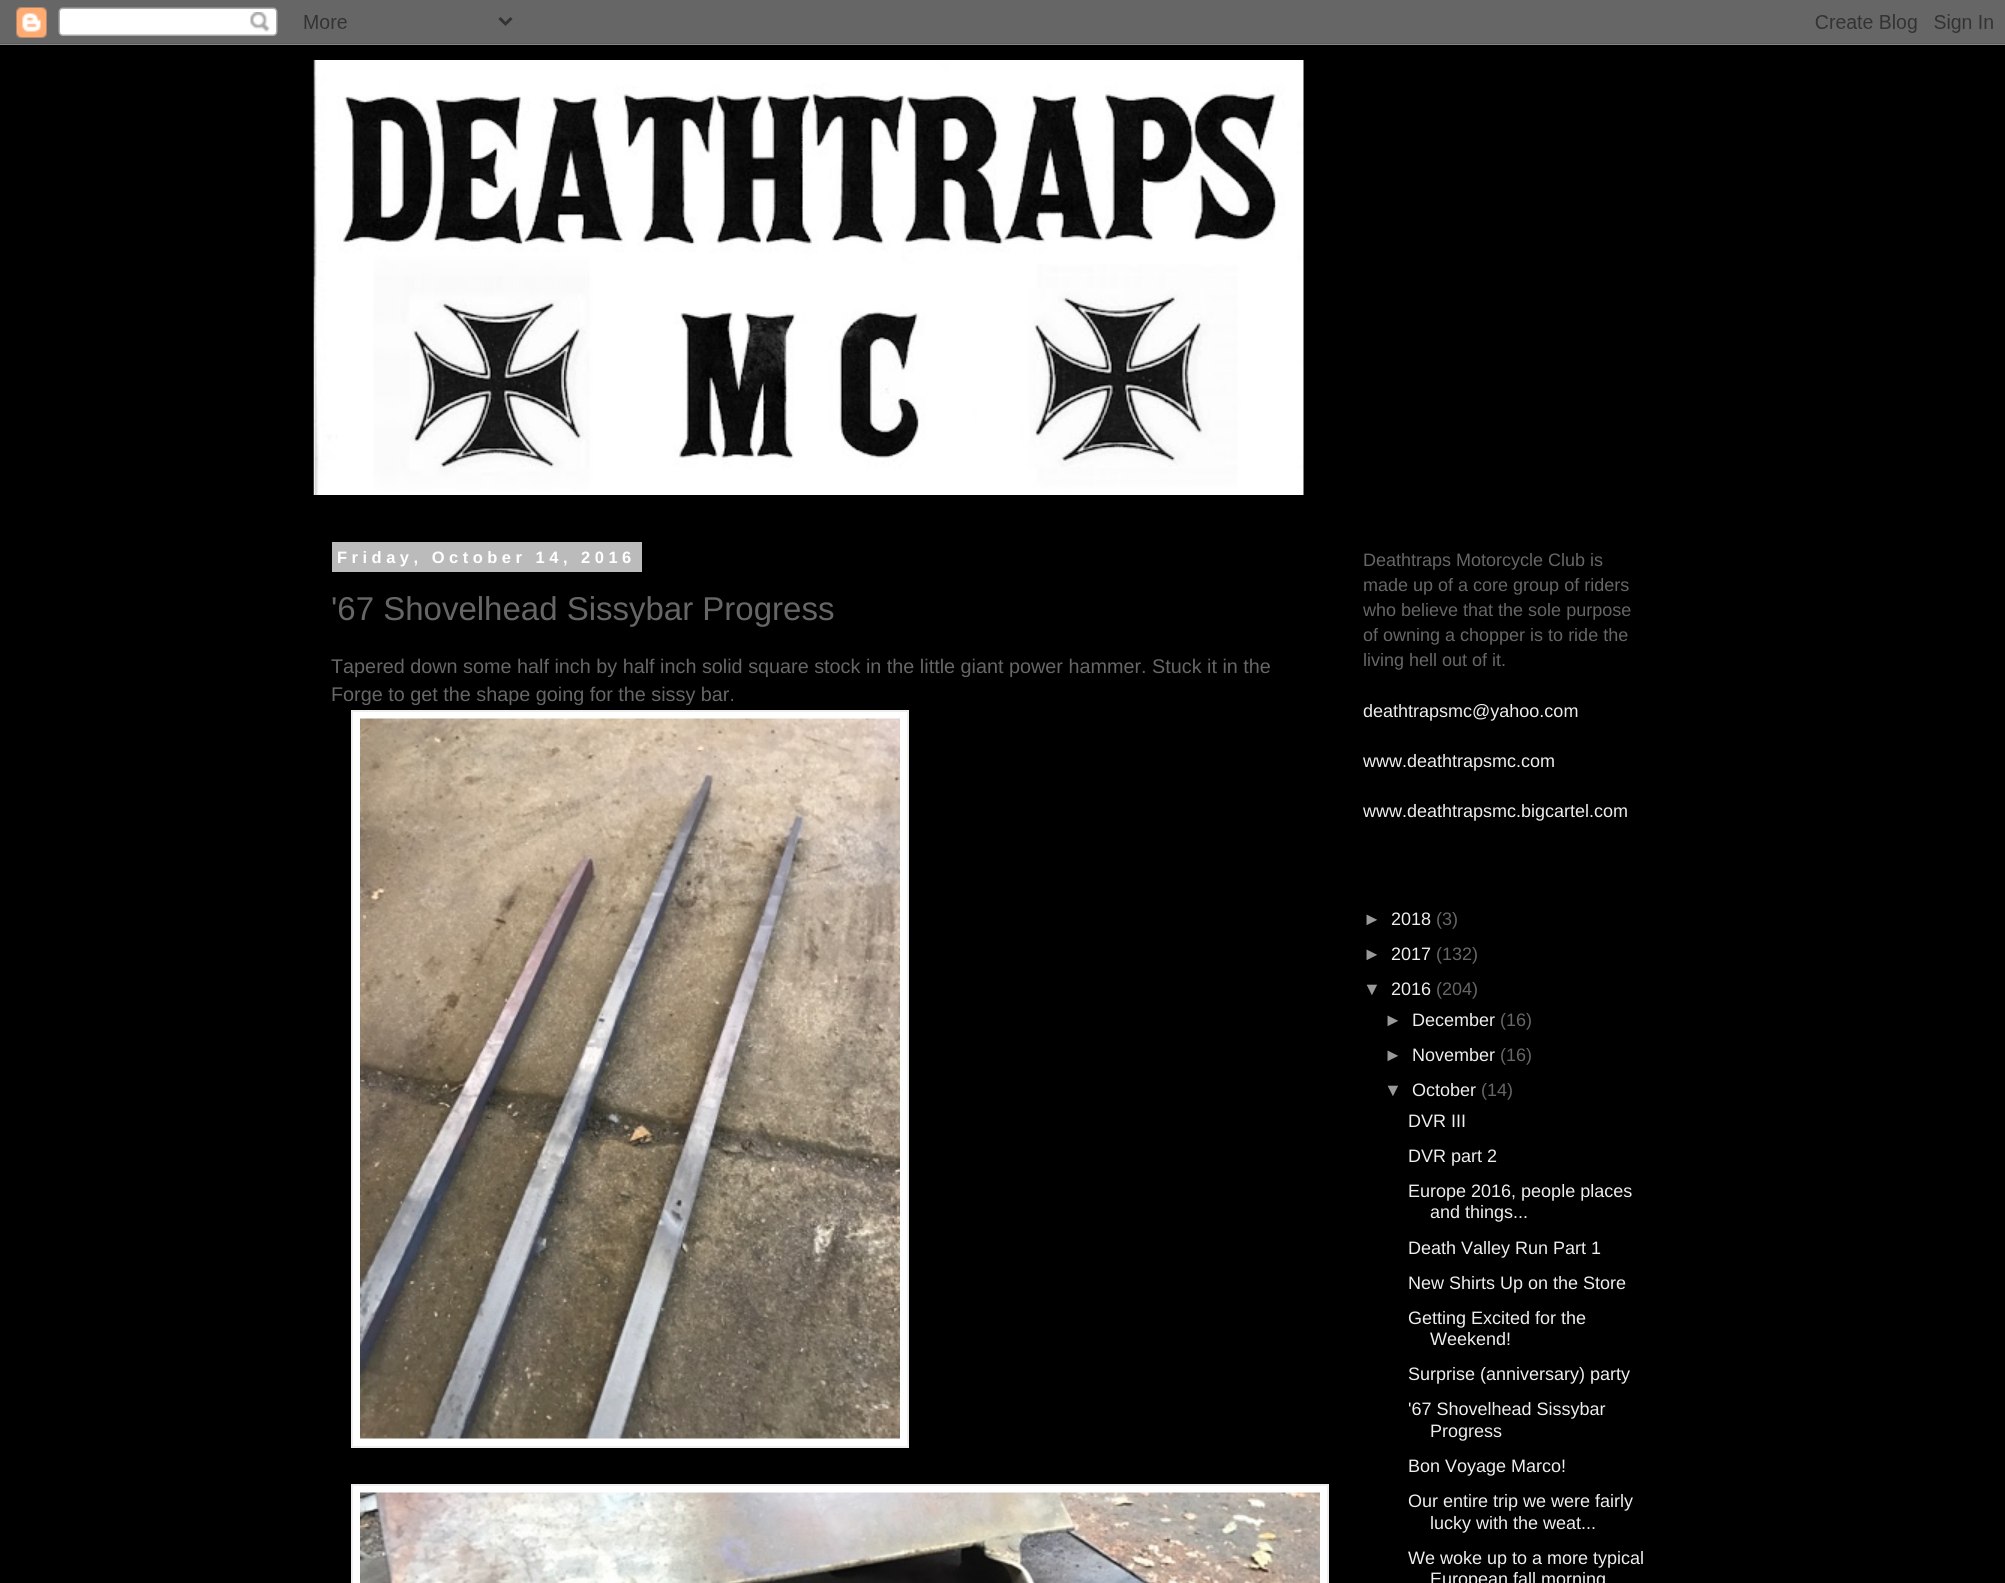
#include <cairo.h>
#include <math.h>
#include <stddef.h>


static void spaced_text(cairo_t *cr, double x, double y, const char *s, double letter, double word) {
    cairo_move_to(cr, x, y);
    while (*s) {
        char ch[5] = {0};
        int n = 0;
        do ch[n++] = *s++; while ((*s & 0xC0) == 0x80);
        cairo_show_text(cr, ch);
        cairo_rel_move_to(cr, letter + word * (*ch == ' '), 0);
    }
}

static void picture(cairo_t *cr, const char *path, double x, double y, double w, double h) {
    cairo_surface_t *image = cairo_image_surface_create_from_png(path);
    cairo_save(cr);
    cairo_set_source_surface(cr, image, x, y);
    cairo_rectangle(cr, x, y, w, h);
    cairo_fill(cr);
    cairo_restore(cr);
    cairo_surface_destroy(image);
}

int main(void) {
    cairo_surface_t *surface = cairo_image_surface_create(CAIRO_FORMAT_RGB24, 2005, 1583);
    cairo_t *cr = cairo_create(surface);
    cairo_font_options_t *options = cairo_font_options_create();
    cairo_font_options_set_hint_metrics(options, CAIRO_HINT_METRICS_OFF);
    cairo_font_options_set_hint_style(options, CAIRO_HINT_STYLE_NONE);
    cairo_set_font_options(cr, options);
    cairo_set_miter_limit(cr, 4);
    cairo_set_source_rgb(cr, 0, 0, 0);
    cairo_paint(cr);
    picture(cr, "img1.png", 0, 0, 2005, 45);
    picture(cr, "img2.png", 313, 60, 991, 435);
    cairo_set_source_rgb(cr, 0.733, 0.733, 0.733);
    cairo_rectangle(cr, 332, 542, 310, 30);
    cairo_fill(cr);
    cairo_select_font_face(cr, "Liberation Sans", CAIRO_FONT_SLANT_NORMAL, CAIRO_FONT_WEIGHT_BOLD);
    cairo_set_font_size(cr, 16.5);
    cairo_set_source_rgb(cr, 1, 1, 1);
    spaced_text(cr, 337, 563, "Friday, October 14, 2016", 4.5, 0);
    cairo_select_font_face(cr, "Liberation Sans", CAIRO_FONT_SLANT_NORMAL, CAIRO_FONT_WEIGHT_NORMAL);
    cairo_set_font_size(cr, 33);
    cairo_set_source_rgb(cr, 0.4, 0.4, 0.4);
    cairo_move_to(cr, 331, 620);
    cairo_show_text(cr, "'67 Shovelhead Sissybar Progress");
    cairo_set_font_size(cr, 19.8);
    cairo_move_to(cr, 331, 673);
    cairo_show_text(cr, "Tapered down some half inch by half inch solid square stock in the little giant power hammer. Stuck it in the");
    cairo_move_to(cr, 331, 701);
    cairo_show_text(cr, "Forge to get the shape going for the sissy bar.");
    cairo_set_source_rgb(cr, 1, 1, 1);
    cairo_rectangle(cr, 352, 711, 556, 736);
    cairo_fill_preserve(cr);
    cairo_set_source_rgb(cr, 0.933, 0.933, 0.933);
    cairo_stroke(cr);
    picture(cr, "img3.png", 360, 718, 540, 721);
    cairo_set_source_rgb(cr, 1, 1, 1);
    cairo_rectangle(cr, 352, 1485, 976, 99);
    cairo_fill_preserve(cr);
    cairo_set_source_rgb(cr, 0.933, 0.933, 0.933);
    cairo_stroke(cr);
    picture(cr, "img4.png", 360, 1492, 960, 91);
    cairo_set_font_size(cr, 18);
    cairo_set_source_rgb(cr, 0.4, 0.4, 0.4);
    cairo_move_to(cr, 1363, 566);
    cairo_show_text(cr, "Deathtraps Motorcycle Club is");
    cairo_move_to(cr, 1363, 591);
    cairo_show_text(cr, "made up of a core group of riders");
    cairo_move_to(cr, 1363, 616);
    cairo_show_text(cr, "who believe that the sole purpose");
    cairo_move_to(cr, 1363, 641);
    cairo_show_text(cr, "of owning a chopper is to ride the");
    cairo_move_to(cr, 1363, 666);
    cairo_show_text(cr, "living hell out of it.");
    cairo_set_source_rgb(cr, 0.933, 0.933, 0.933);
    cairo_move_to(cr, 1363, 717);
    cairo_show_text(cr, "deathtrapsmc@yahoo.com");
    cairo_move_to(cr, 1363, 767);
    cairo_show_text(cr, "www.deathtrapsmc.com");
    cairo_move_to(cr, 1363, 817);
    cairo_show_text(cr, "www.deathtrapsmc.bigcartel.com");
    cairo_set_source_rgb(cr, 0.6, 0.6, 0.6);
    cairo_move_to(cr, 1363, 925);
    cairo_show_text(cr, "►");
    cairo_set_source_rgb(cr, 0.933, 0.933, 0.933);
    cairo_move_to(cr, 1391, 925);
    cairo_show_text(cr, "2018");
    cairo_set_source_rgb(cr, 0.4, 0.4, 0.4);
    cairo_move_to(cr, 1436, 925);
    cairo_show_text(cr, "(3)");
    cairo_set_source_rgb(cr, 0.6, 0.6, 0.6);
    cairo_move_to(cr, 1363, 960);
    cairo_show_text(cr, "►");
    cairo_set_source_rgb(cr, 0.933, 0.933, 0.933);
    cairo_move_to(cr, 1391, 960);
    cairo_show_text(cr, "2017");
    cairo_set_source_rgb(cr, 0.4, 0.4, 0.4);
    cairo_move_to(cr, 1436, 960);
    cairo_show_text(cr, "(132)");
    cairo_set_source_rgb(cr, 0.6, 0.6, 0.6);
    cairo_move_to(cr, 1363, 995);
    cairo_show_text(cr, "▼");
    cairo_set_source_rgb(cr, 0.933, 0.933, 0.933);
    cairo_move_to(cr, 1391, 995);
    cairo_show_text(cr, "2016");
    cairo_set_source_rgb(cr, 0.4, 0.4, 0.4);
    cairo_move_to(cr, 1436, 995);
    cairo_show_text(cr, "(204)");
    cairo_set_source_rgb(cr, 0.6, 0.6, 0.6);
    cairo_move_to(cr, 1384, 1026);
    cairo_show_text(cr, "►");
    cairo_set_source_rgb(cr, 0.933, 0.933, 0.933);
    cairo_move_to(cr, 1412, 1026);
    cairo_show_text(cr, "December");
    cairo_set_source_rgb(cr, 0.4, 0.4, 0.4);
    cairo_move_to(cr, 1500, 1026);
    cairo_show_text(cr, "(16)");
    cairo_set_source_rgb(cr, 0.6, 0.6, 0.6);
    cairo_move_to(cr, 1384, 1061);
    cairo_show_text(cr, "►");
    cairo_set_source_rgb(cr, 0.933, 0.933, 0.933);
    cairo_move_to(cr, 1412, 1061);
    cairo_show_text(cr, "November");
    cairo_set_source_rgb(cr, 0.4, 0.4, 0.4);
    cairo_move_to(cr, 1500, 1061);
    cairo_show_text(cr, "(16)");
    cairo_set_source_rgb(cr, 0.6, 0.6, 0.6);
    cairo_move_to(cr, 1384, 1096);
    cairo_show_text(cr, "▼");
    cairo_set_source_rgb(cr, 0.933, 0.933, 0.933);
    cairo_move_to(cr, 1412, 1096);
    cairo_show_text(cr, "October");
    cairo_set_source_rgb(cr, 0.4, 0.4, 0.4);
    cairo_move_to(cr, 1481, 1096);
    cairo_show_text(cr, "(14)");
    cairo_set_source_rgb(cr, 0.933, 0.933, 0.933);
    cairo_move_to(cr, 1408, 1127);
    cairo_show_text(cr, "DVR III");
    cairo_move_to(cr, 1408, 1162);
    cairo_show_text(cr, "DVR part 2");
    cairo_move_to(cr, 1408, 1197);
    cairo_show_text(cr, "Europe 2016, people places");
    cairo_move_to(cr, 1430, 1218);
    cairo_show_text(cr, "and things...");
    cairo_move_to(cr, 1408, 1254);
    cairo_show_text(cr, "Death Valley Run Part 1");
    cairo_move_to(cr, 1408, 1289);
    cairo_show_text(cr, "New Shirts Up on the Store");
    cairo_move_to(cr, 1408, 1324);
    cairo_show_text(cr, "Getting Excited for the");
    cairo_move_to(cr, 1430, 1345);
    cairo_show_text(cr, "Weekend!");
    cairo_move_to(cr, 1408, 1380);
    cairo_show_text(cr, "Surprise (anniversary) party");
    cairo_move_to(cr, 1408, 1415);
    cairo_show_text(cr, "'67 Shovelhead Sissybar");
    cairo_move_to(cr, 1430, 1437);
    cairo_show_text(cr, "Progress");
    cairo_move_to(cr, 1408, 1472);
    cairo_show_text(cr, "Bon Voyage Marco!");
    cairo_move_to(cr, 1408, 1507);
    cairo_show_text(cr, "Our entire trip we were fairly");
    cairo_move_to(cr, 1430, 1529);
    cairo_show_text(cr, "lucky with the weat...");
    cairo_move_to(cr, 1408, 1564);
    cairo_show_text(cr, "We woke up to a more typical");
    cairo_move_to(cr, 1430, 1585);
    cairo_show_text(cr, "European fall morning");
    cairo_surface_write_to_png(surface, "page.png");
    cairo_font_options_destroy(options);
    cairo_destroy(cr);
    cairo_surface_destroy(surface);
    return 0;
}
